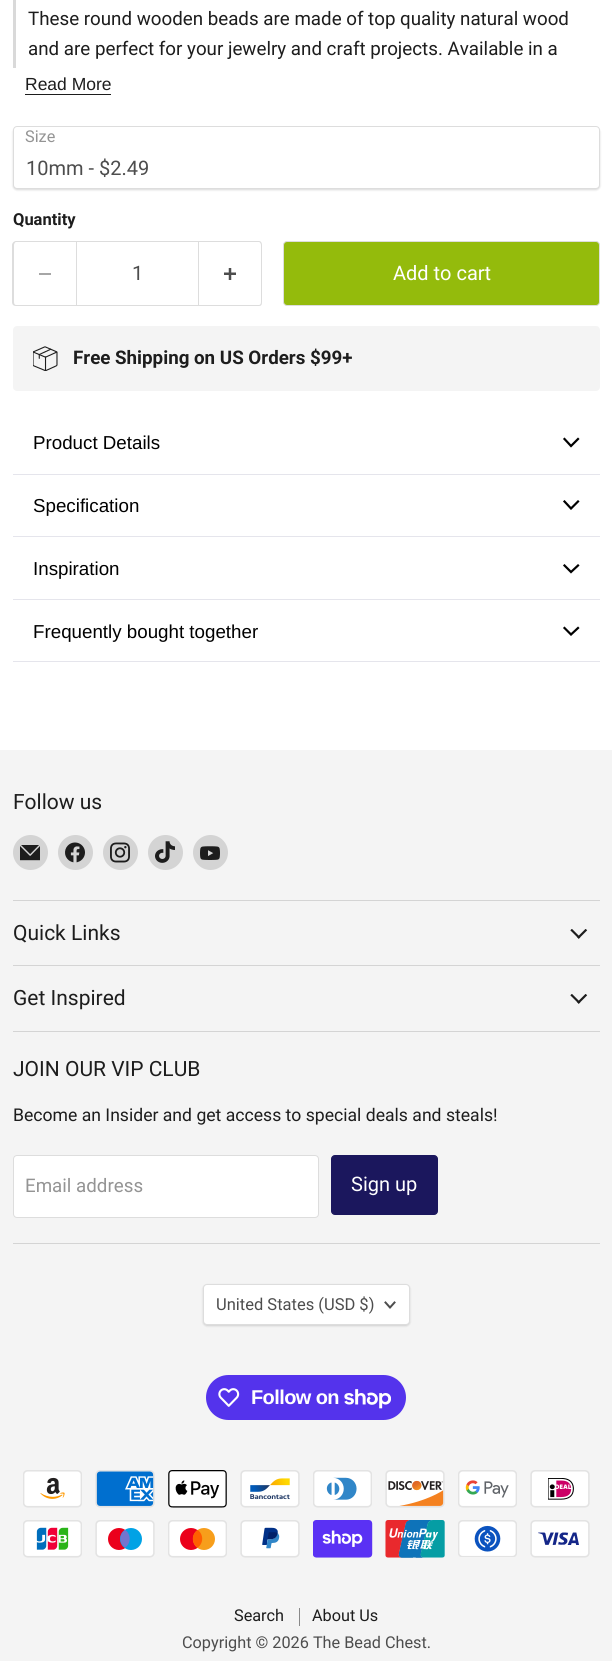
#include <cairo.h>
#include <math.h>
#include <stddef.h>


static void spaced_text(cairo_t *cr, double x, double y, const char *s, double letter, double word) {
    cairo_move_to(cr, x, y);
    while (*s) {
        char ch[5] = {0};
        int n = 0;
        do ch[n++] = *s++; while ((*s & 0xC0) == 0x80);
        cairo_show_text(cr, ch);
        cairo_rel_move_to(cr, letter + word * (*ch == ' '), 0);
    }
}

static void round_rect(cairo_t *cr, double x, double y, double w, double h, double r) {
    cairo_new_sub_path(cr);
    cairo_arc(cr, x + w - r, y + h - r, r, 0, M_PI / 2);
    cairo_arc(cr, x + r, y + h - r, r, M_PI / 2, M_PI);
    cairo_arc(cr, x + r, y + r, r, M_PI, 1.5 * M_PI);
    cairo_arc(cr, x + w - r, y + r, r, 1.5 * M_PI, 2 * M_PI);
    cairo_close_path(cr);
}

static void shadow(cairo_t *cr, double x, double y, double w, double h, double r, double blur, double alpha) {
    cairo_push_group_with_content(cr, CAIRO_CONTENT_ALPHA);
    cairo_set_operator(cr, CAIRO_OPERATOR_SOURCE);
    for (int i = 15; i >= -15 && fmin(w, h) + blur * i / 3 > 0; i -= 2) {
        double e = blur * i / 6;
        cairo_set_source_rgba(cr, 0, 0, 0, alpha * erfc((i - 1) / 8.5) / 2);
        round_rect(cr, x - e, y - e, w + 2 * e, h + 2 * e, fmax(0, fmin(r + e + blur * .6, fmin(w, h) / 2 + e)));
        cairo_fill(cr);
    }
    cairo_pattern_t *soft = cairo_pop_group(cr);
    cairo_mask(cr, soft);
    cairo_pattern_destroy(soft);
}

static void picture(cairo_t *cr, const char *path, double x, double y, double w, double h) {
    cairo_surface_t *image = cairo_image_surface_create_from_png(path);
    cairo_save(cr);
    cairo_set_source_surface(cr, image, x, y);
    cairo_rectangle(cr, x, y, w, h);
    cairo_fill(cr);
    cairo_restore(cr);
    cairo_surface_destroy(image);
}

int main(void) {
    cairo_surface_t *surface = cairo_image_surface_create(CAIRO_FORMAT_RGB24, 612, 1661);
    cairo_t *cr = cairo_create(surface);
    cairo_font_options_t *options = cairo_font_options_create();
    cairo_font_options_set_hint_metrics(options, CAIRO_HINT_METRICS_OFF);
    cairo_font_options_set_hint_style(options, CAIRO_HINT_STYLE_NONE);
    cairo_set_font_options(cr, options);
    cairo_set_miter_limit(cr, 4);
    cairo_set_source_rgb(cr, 1, 1, 1);
    cairo_paint(cr);
    cairo_set_source_rgb(cr, 0.851, 0.851, 0.851);
    cairo_rectangle(cr, 13, 0, 3, 68);
    cairo_fill(cr);
    cairo_select_font_face(cr, "Roboto", CAIRO_FONT_SLANT_NORMAL, CAIRO_FONT_WEIGHT_NORMAL);
    cairo_set_font_size(cr, 18.75);
    cairo_set_source_rgb(cr, 0.114, 0.114, 0.114);
    cairo_move_to(cr, 28, 25);
    cairo_show_text(cr, "These round wooden beads are made of top quality natural wood");
    cairo_move_to(cr, 28, 55);
    cairo_show_text(cr, "and are perfect for your jewelry and craft projects. Available in a");
    cairo_rectangle(cr, 25, 94, 86, 1);
    cairo_fill(cr);
    cairo_select_font_face(cr, "Liberation Sans", CAIRO_FONT_SLANT_NORMAL, CAIRO_FONT_WEIGHT_NORMAL);
    cairo_set_font_size(cr, 17.5);
    cairo_move_to(cr, 25, 90);
    cairo_show_text(cr, "Read More");
    cairo_set_source_rgb(cr, 0, 0, 0);
    shadow(cr, 13, 128, 587, 62, 4, 1, 0.15);
    cairo_set_source_rgb(cr, 1, 1, 1);
    round_rect(cr, 13.5, 126.5, 586, 62, 3.5);
    cairo_fill_preserve(cr);
    cairo_set_source_rgb(cr, 0.867, 0.867, 0.867);
    cairo_set_line_width(cr, 1);
    cairo_stroke(cr);
    cairo_select_font_face(cr, "Roboto", CAIRO_FONT_SLANT_NORMAL, CAIRO_FONT_WEIGHT_NORMAL);
    cairo_set_font_size(cr, 16.25);
    cairo_set_source_rgb(cr, 0.58, 0.58, 0.58);
    cairo_move_to(cr, 25, 142);
    cairo_show_text(cr, "Size");
    cairo_set_font_size(cr, 20);
    cairo_set_source_rgb(cr, 0.302, 0.302, 0.302);
    cairo_move_to(cr, 26, 175);
    cairo_show_text(cr, "10mm - $2.49");
    cairo_select_font_face(cr, "Roboto", CAIRO_FONT_SLANT_NORMAL, CAIRO_FONT_WEIGHT_BOLD);
    cairo_set_font_size(cr, 16.5);
    cairo_set_source_rgb(cr, 0.114, 0.114, 0.114);
    cairo_move_to(cr, 13, 225);
    cairo_show_text(cr, "Quantity");
    cairo_set_source_rgb(cr, 0.867, 0.867, 0.867);
    cairo_set_fill_rule(cr, CAIRO_FILL_RULE_EVEN_ODD);
    cairo_new_path(cr);
    cairo_move_to(cr, 16, 241);
    cairo_line_to(cr, 76, 241);
    cairo_line_to(cr, 76, 306);
    cairo_line_to(cr, 16, 306);
    cairo_curve_to(cr, 14, 306, 12, 305, 12, 302);
    cairo_line_to(cr, 12, 245);
    cairo_curve_to(cr, 12, 243, 14, 241, 16, 241);
    cairo_close_path(cr);
    cairo_move_to(cr, 16, 242);
    cairo_line_to(cr, 76, 242);
    cairo_line_to(cr, 76, 305);
    cairo_line_to(cr, 16, 305);
    cairo_curve_to(cr, 15, 305, 14, 304, 14, 302);
    cairo_line_to(cr, 14, 245);
    cairo_curve_to(cr, 14, 244, 15, 242, 16, 242);
    cairo_close_path(cr);
    cairo_fill(cr);
    cairo_set_source_rgb(cr, 0.651, 0.651, 0.651);
    cairo_rectangle(cr, 39, 273, 12, 2);
    cairo_fill(cr);
    cairo_rectangle(cr, 76.5, 241.5, 122, 64);
    cairo_set_source_rgb(cr, 0.867, 0.867, 0.867);
    cairo_stroke(cr);
    cairo_select_font_face(cr, "Roboto", CAIRO_FONT_SLANT_NORMAL, CAIRO_FONT_WEIGHT_NORMAL);
    cairo_set_font_size(cr, 20);
    cairo_set_source_rgb(cr, 0.302, 0.302, 0.302);
    cairo_move_to(cr, 132, 280);
    cairo_show_text(cr, "1");
    cairo_set_source_rgb(cr, 0.867, 0.867, 0.867);
    cairo_new_path(cr);
    cairo_move_to(cr, 199, 241);
    cairo_line_to(cr, 259, 241);
    cairo_curve_to(cr, 261, 241, 262, 243, 262, 245);
    cairo_line_to(cr, 262, 302);
    cairo_curve_to(cr, 262, 305, 261, 306, 259, 306);
    cairo_line_to(cr, 199, 306);
    cairo_close_path(cr);
    cairo_move_to(cr, 199, 242);
    cairo_line_to(cr, 259, 242);
    cairo_curve_to(cr, 260, 242, 261, 244, 261, 245);
    cairo_line_to(cr, 261, 302);
    cairo_curve_to(cr, 261, 304, 260, 305, 259, 305);
    cairo_line_to(cr, 199, 305);
    cairo_close_path(cr);
    cairo_fill(cr);
    picture(cr, "img1.png", 224, 268, 12, 12);
    cairo_set_source_rgb(cr, 0.58, 0.733, 0.047);
    round_rect(cr, 283.5, 241.5, 316, 64, 3.5);
    cairo_fill_preserve(cr);
    cairo_set_source_rgb(cr, 0.867, 0.867, 0.867);
    cairo_stroke(cr);
    cairo_set_source_rgb(cr, 1, 1, 1);
    cairo_move_to(cr, 393, 280);
    cairo_show_text(cr, "Add to cart");
    cairo_set_source_rgb(cr, 0.957, 0.957, 0.957);
    round_rect(cr, 13, 326, 587, 65, 4);
    cairo_fill(cr);
    picture(cr, "img2.png", 33, 346, 25, 25);
    cairo_select_font_face(cr, "Roboto", CAIRO_FONT_SLANT_NORMAL, CAIRO_FONT_WEIGHT_BOLD);
    cairo_set_font_size(cr, 18.75);
    cairo_set_source_rgb(cr, 0.114, 0.114, 0.114);
    cairo_move_to(cr, 73, 364);
    cairo_show_text(cr, "Free Shipping on US Orders $99+");
    cairo_set_source_rgb(cr, 0.898, 0.898, 0.922);
    cairo_rectangle(cr, 13, 474, 587, 1);
    cairo_fill(cr);
    cairo_select_font_face(cr, "Liberation Sans", CAIRO_FONT_SLANT_NORMAL, CAIRO_FONT_WEIGHT_NORMAL);
    cairo_set_source_rgb(cr, 0, 0, 0);
    cairo_move_to(cr, 33, 449);
    cairo_show_text(cr, "Product Details");
    cairo_new_path(cr);
    cairo_move_to(cr, 571, 446);
    cairo_line_to(cr, 578, 439);
    cairo_move_to(cr, 571, 446);
    cairo_line_to(cr, 564.5, 439);
    cairo_set_line_width(cr, 2.2);
    cairo_set_line_cap(cr, CAIRO_LINE_CAP_SQUARE);
    cairo_stroke(cr);
    cairo_set_source_rgb(cr, 0.898, 0.898, 0.922);
    cairo_rectangle(cr, 13, 536, 587, 1);
    cairo_fill(cr);
    cairo_set_source_rgb(cr, 0, 0, 0);
    cairo_move_to(cr, 33, 512);
    cairo_show_text(cr, "Specification");
    cairo_new_path(cr);
    cairo_move_to(cr, 571, 508.5);
    cairo_line_to(cr, 578, 501.5);
    cairo_move_to(cr, 571, 508.5);
    cairo_line_to(cr, 564.5, 501.5);
    cairo_stroke(cr);
    cairo_set_source_rgb(cr, 0.898, 0.898, 0.922);
    cairo_rectangle(cr, 13, 599, 587, 1);
    cairo_fill(cr);
    cairo_set_source_rgb(cr, 0, 0, 0);
    cairo_move_to(cr, 33, 575);
    cairo_show_text(cr, "Inspiration");
    cairo_new_path(cr);
    cairo_move_to(cr, 571, 572);
    cairo_line_to(cr, 578, 565.5);
    cairo_move_to(cr, 571, 572);
    cairo_line_to(cr, 564.5, 565.5);
    cairo_stroke(cr);
    cairo_set_source_rgb(cr, 0.898, 0.898, 0.922);
    cairo_rectangle(cr, 13, 661, 587, 1);
    cairo_fill(cr);
    cairo_set_source_rgb(cr, 0, 0, 0);
    cairo_move_to(cr, 33, 638);
    cairo_show_text(cr, "Frequently bought together");
    cairo_new_path(cr);
    cairo_move_to(cr, 571, 634.5);
    cairo_line_to(cr, 578, 628);
    cairo_move_to(cr, 571, 634.5);
    cairo_line_to(cr, 564.5, 628);
    cairo_stroke(cr);
    cairo_set_source_rgb(cr, 0.957, 0.957, 0.957);
    cairo_rectangle(cr, 0, 750, 612, 911);
    cairo_fill(cr);
    cairo_set_source_rgb(cr, 0.831, 0.831, 0.831);
    cairo_rectangle(cr, 13, 900, 587, 1);
    cairo_fill(cr);
    cairo_select_font_face(cr, "Roboto", CAIRO_FONT_SLANT_NORMAL, CAIRO_FONT_WEIGHT_NORMAL);
    cairo_set_font_size(cr, 21);
    cairo_set_source_rgb(cr, 0.114, 0.114, 0.114);
    cairo_move_to(cr, 13, 809);
    cairo_show_text(cr, "Follow us");
    cairo_set_source_rgb(cr, 0.831, 0.831, 0.831);
    cairo_new_path(cr);
    cairo_arc(cr, 30.5, 852.5, 17.5, 0, 2 * M_PI);
    cairo_fill(cr);
    picture(cr, "img3.png", 20, 845, 20, 16);
    cairo_arc(cr, 75.5, 852.5, 17.5, 0, 2 * M_PI);
    cairo_fill(cr);
    picture(cr, "img4.png", 65, 842, 20, 21);
    cairo_arc(cr, 120.5, 852.5, 17.5, 0, 2 * M_PI);
    cairo_fill(cr);
    picture(cr, "img5.png", 110, 842, 20, 21);
    cairo_arc(cr, 165.5, 852.5, 17.5, 0, 2 * M_PI);
    cairo_fill(cr);
    picture(cr, "img6.png", 155, 841, 20, 22);
    cairo_arc(cr, 210.5, 852.5, 17.5, 0, 2 * M_PI);
    cairo_fill(cr);
    picture(cr, "img7.png", 200, 846, 20, 14);
    cairo_rectangle(cr, 13, 965, 587, 1);
    cairo_fill(cr);
    cairo_set_source_rgb(cr, 0.114, 0.114, 0.114);
    cairo_move_to(cr, 13, 940);
    cairo_show_text(cr, "Quick Links");
    picture(cr, "img8.png", 570, 929, 18, 10);
    cairo_set_source_rgb(cr, 0.831, 0.831, 0.831);
    cairo_rectangle(cr, 13, 1031, 587, 1);
    cairo_fill(cr);
    cairo_set_source_rgb(cr, 0.114, 0.114, 0.114);
    cairo_move_to(cr, 13, 1005);
    cairo_show_text(cr, "Get Inspired");
    picture(cr, "img8.png", 570, 994, 18, 10);
    cairo_set_source_rgb(cr, 0.831, 0.831, 0.831);
    cairo_rectangle(cr, 13, 1243, 587, 1);
    cairo_fill(cr);
    cairo_set_source_rgb(cr, 0.114, 0.114, 0.114);
    cairo_move_to(cr, 13, 1076);
    cairo_show_text(cr, "JOIN OUR VIP CLUB");
    cairo_set_font_size(cr, 17.6);
    cairo_move_to(cr, 13, 1121);
    cairo_show_text(cr, "Become an Insider and get access to special deals and steals!");
    cairo_set_source_rgb(cr, 1, 1, 1);
    round_rect(cr, 13.5, 1155.5, 305, 62, 3.5);
    cairo_fill_preserve(cr);
    cairo_set_source_rgb(cr, 0.867, 0.867, 0.867);
    cairo_set_line_width(cr, 1);
    cairo_set_line_cap(cr, CAIRO_LINE_CAP_BUTT);
    cairo_stroke(cr);
    cairo_set_font_size(cr, 18.75);
    cairo_set_source_rgb(cr, 0.58, 0.58, 0.58);
    cairo_move_to(cr, 25, 1192);
    cairo_show_text(cr, "Email address");
    cairo_set_source_rgb(cr, 0.106, 0.09, 0.365);
    round_rect(cr, 331.5, 1155.5, 106, 59, 3.5);
    cairo_fill_preserve(cr);
    cairo_stroke(cr);
    cairo_set_font_size(cr, 20);
    cairo_set_source_rgb(cr, 1, 1, 1);
    cairo_move_to(cr, 351, 1191);
    cairo_show_text(cr, "Sign up");
    cairo_set_source_rgb(cr, 0, 0, 0);
    shadow(cr, 203, 1285, 207, 41, 4, 1, 0.15);
    cairo_set_source_rgb(cr, 1, 1, 1);
    round_rect(cr, 203.5, 1284.5, 206, 40, 3.5);
    cairo_fill_preserve(cr);
    cairo_set_source_rgb(cr, 0.867, 0.867, 0.867);
    cairo_stroke(cr);
    cairo_set_font_size(cr, 16.5);
    cairo_set_source_rgb(cr, 0.302, 0.302, 0.302);
    cairo_move_to(cr, 216, 1310);
    cairo_show_text(cr, "United States (USD $)");
    cairo_new_path(cr);
    cairo_move_to(cr, 390, 1307.5);
    cairo_line_to(cr, 394.5, 1302.5);
    cairo_move_to(cr, 390, 1307.5);
    cairo_line_to(cr, 385.5, 1302.5);
    cairo_set_line_width(cr, 2);
    cairo_set_line_cap(cr, CAIRO_LINE_CAP_SQUARE);
    cairo_stroke(cr);
    cairo_set_source_rgb(cr, 0.329, 0.2, 0.922);
    round_rect(cr, 206, 1375, 200, 45, 22.5);
    cairo_fill(cr);
    picture(cr, "img9.png", 218, 1388, 22, 19);
    cairo_select_font_face(cr, "Liberation Sans", CAIRO_FONT_SLANT_NORMAL, CAIRO_FONT_WEIGHT_BOLD);
    cairo_set_font_size(cr, 20);
    cairo_set_source_rgb(cr, 1, 1, 1);
    spaced_text(cr, 251, 1404, "Follow on", -0.6, 0);
    picture(cr, "img10.png", 344, 1389, 47, 20);
    picture(cr, "img11.png", 23, 1470, 59, 38);
    picture(cr, "img12.png", 95, 1470, 60, 38);
    picture(cr, "img13.png", 168, 1470, 59, 38);
    picture(cr, "img14.png", 240, 1470, 60, 38);
    picture(cr, "img15.png", 313, 1470, 59, 38);
    picture(cr, "img16.png", 385, 1470, 60, 38);
    picture(cr, "img17.png", 458, 1470, 59, 38);
    picture(cr, "img18.png", 530, 1470, 60, 38);
    picture(cr, "img19.png", 23, 1520, 59, 38);
    picture(cr, "img20.png", 95, 1520, 60, 38);
    picture(cr, "img21.png", 168, 1520, 59, 38);
    picture(cr, "img22.png", 240, 1520, 60, 38);
    picture(cr, "img23.png", 313, 1520, 60, 38);
    picture(cr, "img24.png", 385, 1520, 60, 38);
    picture(cr, "img25.png", 458, 1520, 59, 37);
    picture(cr, "img26.png", 530, 1520, 60, 38);
    cairo_set_source_rgb(cr, 0.537, 0.537, 0.537);
    cairo_rectangle(cr, 299, 1608, 1, 18);
    cairo_fill(cr);
    cairo_select_font_face(cr, "Roboto", CAIRO_FONT_SLANT_NORMAL, CAIRO_FONT_WEIGHT_NORMAL);
    cairo_set_font_size(cr, 16.25);
    cairo_set_source_rgb(cr, 0.114, 0.114, 0.114);
    cairo_move_to(cr, 234, 1621);
    cairo_show_text(cr, "Search");
    cairo_move_to(cr, 312, 1621);
    cairo_show_text(cr, "About Us");
    cairo_set_source_rgb(cr, 0.302, 0.302, 0.302);
    cairo_move_to(cr, 182, 1648);
    cairo_show_text(cr, "Copyright © 2026 The Bead Chest.");
    cairo_surface_write_to_png(surface, "page.png");
    cairo_font_options_destroy(options);
    cairo_destroy(cr);
    cairo_surface_destroy(surface);
    return 0;
}
